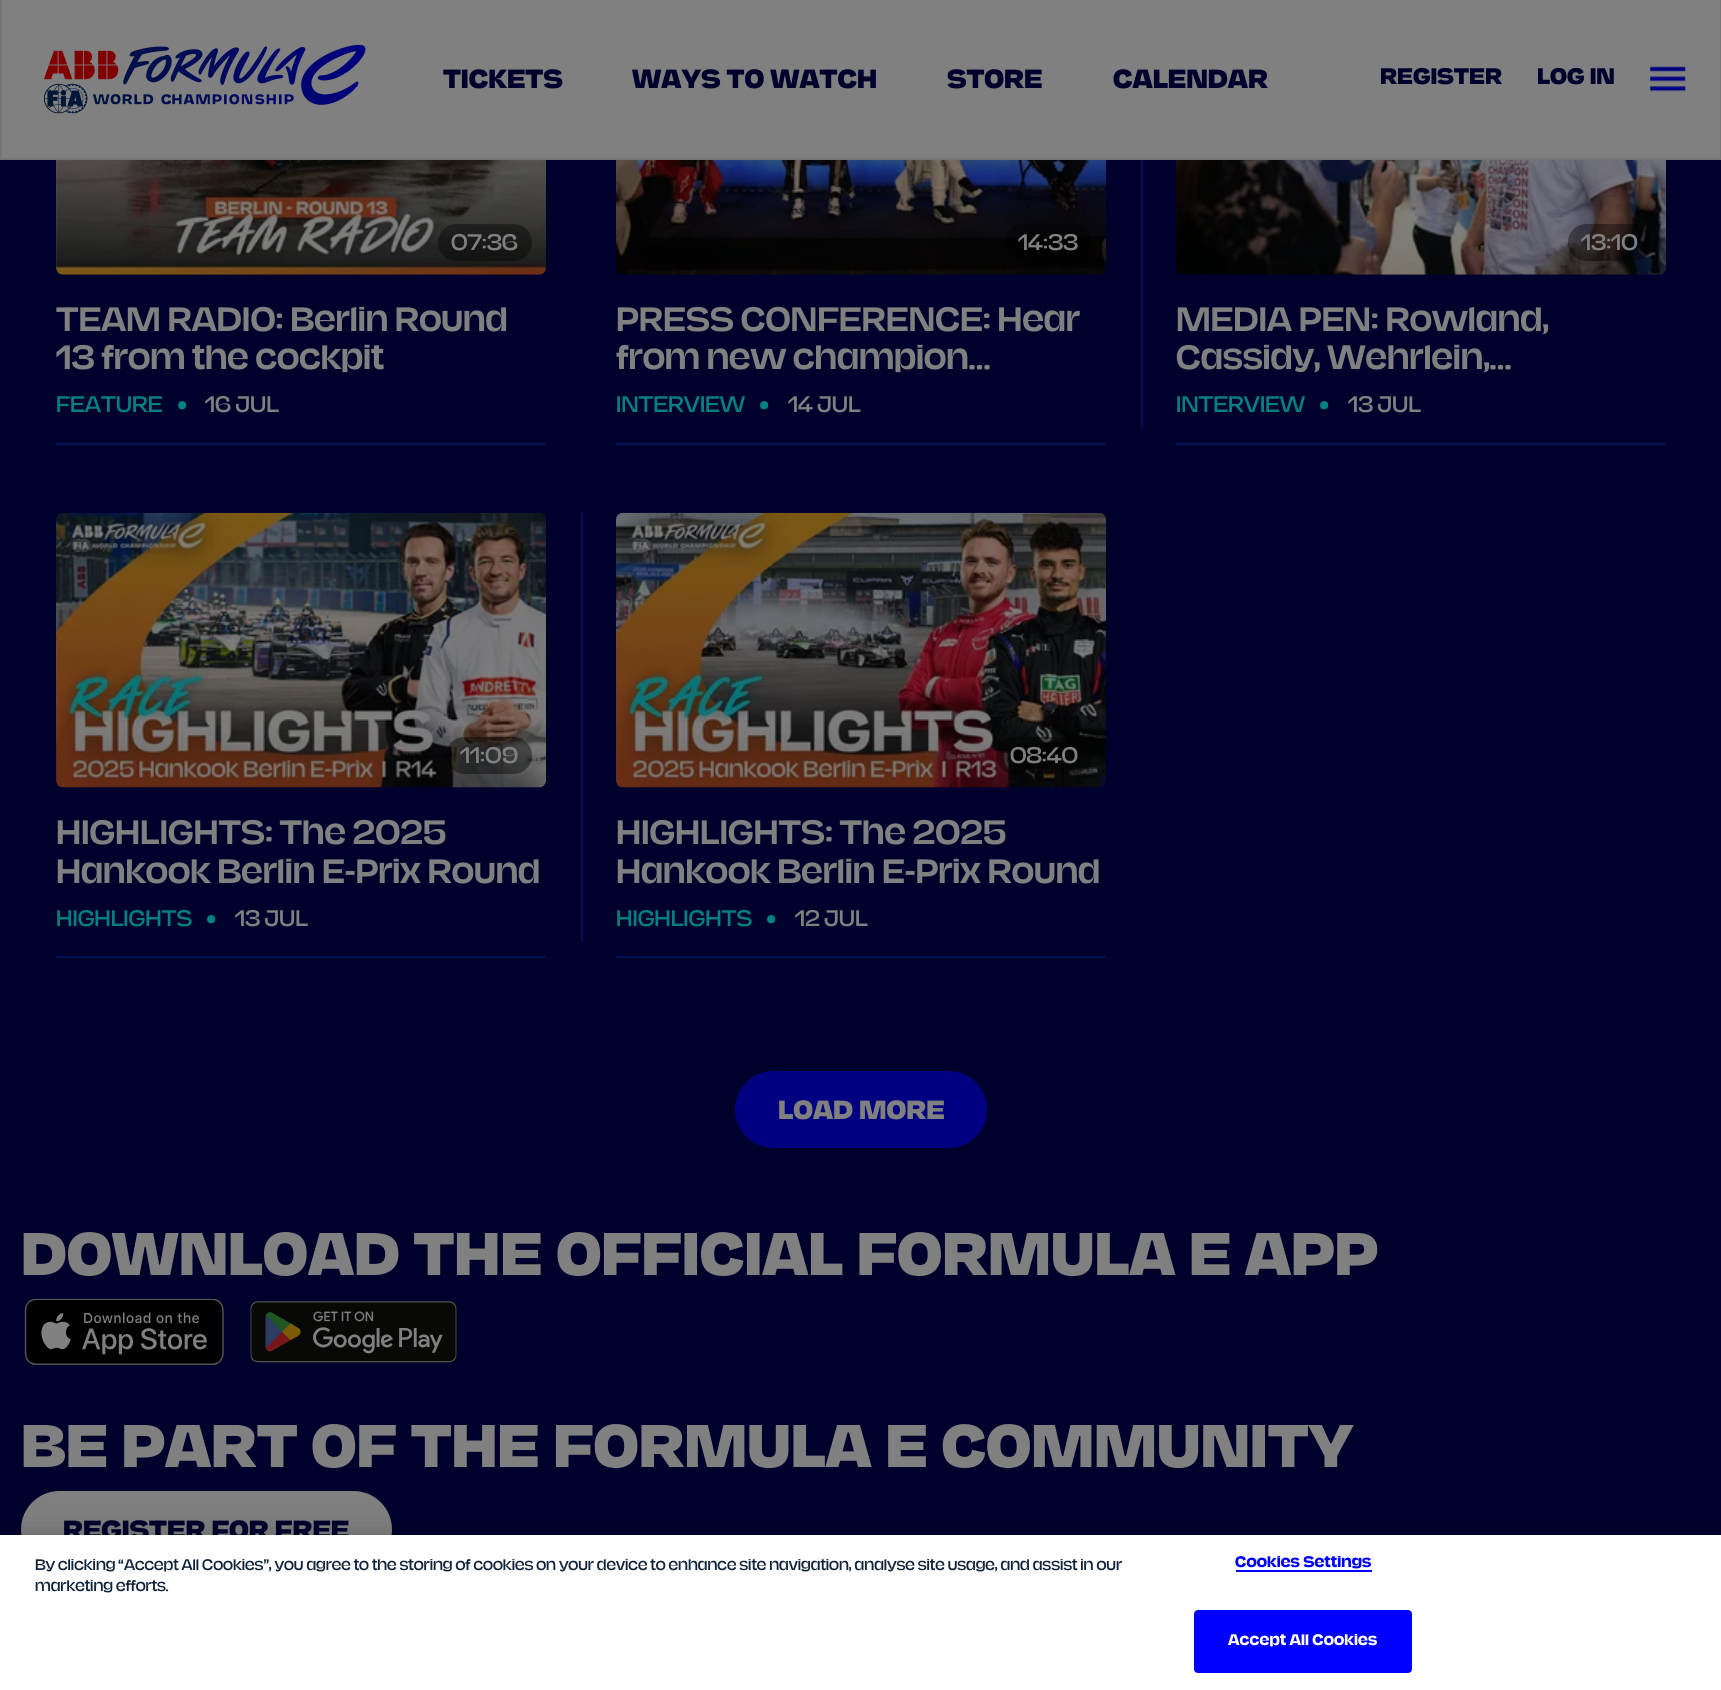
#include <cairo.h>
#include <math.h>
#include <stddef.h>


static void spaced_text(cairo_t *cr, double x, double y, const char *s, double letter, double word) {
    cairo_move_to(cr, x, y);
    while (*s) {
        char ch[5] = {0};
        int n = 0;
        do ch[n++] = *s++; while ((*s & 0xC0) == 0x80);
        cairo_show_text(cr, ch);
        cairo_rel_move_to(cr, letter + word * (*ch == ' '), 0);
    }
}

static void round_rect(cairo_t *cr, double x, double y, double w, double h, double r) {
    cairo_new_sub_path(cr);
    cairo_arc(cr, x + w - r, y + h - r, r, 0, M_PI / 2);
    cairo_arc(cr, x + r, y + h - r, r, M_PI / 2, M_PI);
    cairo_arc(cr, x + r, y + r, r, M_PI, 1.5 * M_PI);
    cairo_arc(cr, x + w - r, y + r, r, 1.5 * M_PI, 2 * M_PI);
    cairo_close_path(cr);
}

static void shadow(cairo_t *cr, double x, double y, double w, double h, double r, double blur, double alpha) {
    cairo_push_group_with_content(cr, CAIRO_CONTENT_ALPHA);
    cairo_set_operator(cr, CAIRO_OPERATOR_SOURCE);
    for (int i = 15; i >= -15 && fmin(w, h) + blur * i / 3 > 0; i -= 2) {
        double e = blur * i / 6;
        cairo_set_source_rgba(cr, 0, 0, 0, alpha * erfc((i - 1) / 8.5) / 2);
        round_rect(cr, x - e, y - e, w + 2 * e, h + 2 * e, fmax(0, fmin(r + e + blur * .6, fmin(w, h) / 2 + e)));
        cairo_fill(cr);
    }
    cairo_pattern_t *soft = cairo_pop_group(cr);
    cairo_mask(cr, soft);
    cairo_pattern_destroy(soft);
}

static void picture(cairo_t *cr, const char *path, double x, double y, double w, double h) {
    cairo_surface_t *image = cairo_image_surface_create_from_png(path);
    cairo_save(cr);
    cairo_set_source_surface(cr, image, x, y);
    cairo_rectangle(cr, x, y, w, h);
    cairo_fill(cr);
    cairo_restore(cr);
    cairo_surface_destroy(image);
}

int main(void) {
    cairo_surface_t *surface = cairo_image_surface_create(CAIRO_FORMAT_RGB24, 1721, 1690);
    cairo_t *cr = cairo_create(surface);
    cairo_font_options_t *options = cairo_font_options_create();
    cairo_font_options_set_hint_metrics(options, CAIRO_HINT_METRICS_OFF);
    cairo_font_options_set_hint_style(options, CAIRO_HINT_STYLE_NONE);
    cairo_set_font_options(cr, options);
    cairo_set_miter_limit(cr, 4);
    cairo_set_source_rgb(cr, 0, 0, 0.176);
    cairo_paint(cr);
    cairo_set_source_rgb(cr, 0.502, 0.502, 0.502);
    cairo_rectangle(cr, 2, 0, 1718, 158);
    cairo_fill(cr);
    cairo_set_source_rgb(cr, 0.463, 0.463, 0.463);
    cairo_rectangle(cr, 1720, 0, 1, 159);
    cairo_fill(cr);
    cairo_rectangle(cr, 0, 158, 1721, 2);
    cairo_fill(cr);
    cairo_rectangle(cr, 0, 0, 2, 159);
    cairo_fill(cr);
    picture(cr, "img1.png", 44, 44, 322, 70);
    cairo_select_font_face(cr, "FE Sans", CAIRO_FONT_SLANT_NORMAL, CAIRO_FONT_WEIGHT_BOLD);
    cairo_set_font_size(cr, 24.5);
    cairo_set_source_rgb(cr, 0, 0, 0.176);
    cairo_move_to(cr, 443, 88);
    cairo_show_text(cr, "TICKETS");
    cairo_move_to(cr, 632, 88);
    cairo_show_text(cr, "WAYS TO WATCH");
    cairo_move_to(cr, 947, 88);
    cairo_show_text(cr, "STORE");
    cairo_move_to(cr, 1113, 88);
    cairo_show_text(cr, "CALENDAR");
    cairo_set_font_size(cr, 21);
    cairo_move_to(cr, 1380, 84);
    cairo_show_text(cr, "REGISTER");
    cairo_move_to(cr, 1537, 84);
    cairo_show_text(cr, "LOG IN");
    picture(cr, "img2.png", 1650, 66, 36, 26);
    picture(cr, "img3.png", 56, 160, 490, 115);
    cairo_set_source_rgba(cr, 0, 0, 0, 0.4);
    round_rect(cr, 438, 224, 94, 37, 18.5);
    cairo_fill(cr);
    cairo_select_font_face(cr, "FE Sans", CAIRO_FONT_SLANT_NORMAL, CAIRO_FONT_WEIGHT_NORMAL);
    cairo_set_source_rgb(cr, 0.502, 0.502, 0.502);
    cairo_move_to(cr, 451, 250);
    cairo_show_text(cr, "07:36");
    cairo_select_font_face(cr, "FE Sans Medium", CAIRO_FONT_SLANT_NORMAL, CAIRO_FONT_WEIGHT_NORMAL);
    cairo_set_font_size(cr, 31.5);
    cairo_move_to(cr, 56, 331);
    cairo_show_text(cr, "TEAM RADIO: Berlin Round");
    cairo_move_to(cr, 56, 369);
    cairo_show_text(cr, "13 from the cockpit");
    cairo_select_font_face(cr, "FE Sans", CAIRO_FONT_SLANT_NORMAL, CAIRO_FONT_WEIGHT_NORMAL);
    cairo_set_font_size(cr, 21);
    cairo_set_source_rgb(cr, 0, 0.502, 0.502);
    cairo_move_to(cr, 56, 412);
    cairo_show_text(cr, "FEATURE");
    cairo_move_to(cr, 177, 412);
    cairo_show_text(cr, "•");
    cairo_set_source_rgb(cr, 0.502, 0.502, 0.502);
    cairo_move_to(cr, 205, 412);
    cairo_show_text(cr, "16 JUL");
    cairo_set_source_rgb(cr, 0, 0.071, 0.341);
    cairo_rectangle(cr, 56, 443, 490, 2);
    cairo_fill(cr);
    picture(cr, "img4.png", 616, 160, 490, 115);
    cairo_set_source_rgba(cr, 0, 0, 0, 0.4);
    round_rect(cr, 1005, 224, 87, 37, 18.5);
    cairo_fill(cr);
    cairo_set_source_rgb(cr, 0.502, 0.502, 0.502);
    cairo_move_to(cr, 1018, 250);
    cairo_show_text(cr, "14:33");
    cairo_select_font_face(cr, "FE Sans Medium", CAIRO_FONT_SLANT_NORMAL, CAIRO_FONT_WEIGHT_NORMAL);
    cairo_set_font_size(cr, 31.5);
    cairo_move_to(cr, 616, 331);
    cairo_show_text(cr, "PRESS CONFERENCE: Hear");
    cairo_move_to(cr, 616, 369);
    cairo_show_text(cr, "from new champion…");
    cairo_select_font_face(cr, "FE Sans", CAIRO_FONT_SLANT_NORMAL, CAIRO_FONT_WEIGHT_NORMAL);
    cairo_set_font_size(cr, 21);
    cairo_set_source_rgb(cr, 0, 0.502, 0.502);
    cairo_move_to(cr, 616, 412);
    cairo_show_text(cr, "INTERVIEW");
    cairo_move_to(cr, 759, 412);
    cairo_show_text(cr, "•");
    cairo_set_source_rgb(cr, 0.502, 0.502, 0.502);
    cairo_move_to(cr, 788, 412);
    cairo_show_text(cr, "14 JUL");
    cairo_set_source_rgb(cr, 0, 0.071, 0.341);
    cairo_rectangle(cr, 616, 443, 490, 2);
    cairo_fill(cr);
    cairo_rectangle(cr, 1141, 160, 2, 269);
    cairo_fill(cr);
    picture(cr, "img5.png", 1176, 160, 490, 115);
    cairo_set_source_rgba(cr, 0, 0, 0, 0.4);
    round_rect(cr, 1568, 224, 84, 37, 18.5);
    cairo_fill(cr);
    cairo_set_source_rgb(cr, 0.502, 0.502, 0.502);
    cairo_move_to(cr, 1581, 250);
    cairo_show_text(cr, "13:10");
    cairo_select_font_face(cr, "FE Sans Medium", CAIRO_FONT_SLANT_NORMAL, CAIRO_FONT_WEIGHT_NORMAL);
    cairo_set_font_size(cr, 31.5);
    cairo_move_to(cr, 1176, 331);
    cairo_show_text(cr, "MEDIA PEN: Rowland,");
    cairo_move_to(cr, 1176, 369);
    cairo_show_text(cr, "Cassidy, Wehrlein,…");
    cairo_select_font_face(cr, "FE Sans", CAIRO_FONT_SLANT_NORMAL, CAIRO_FONT_WEIGHT_NORMAL);
    cairo_set_font_size(cr, 21);
    cairo_set_source_rgb(cr, 0, 0.502, 0.502);
    cairo_move_to(cr, 1176, 412);
    cairo_show_text(cr, "INTERVIEW");
    cairo_move_to(cr, 1319, 412);
    cairo_show_text(cr, "•");
    cairo_set_source_rgb(cr, 0.502, 0.502, 0.502);
    cairo_move_to(cr, 1348, 412);
    cairo_show_text(cr, "13 JUL");
    cairo_set_source_rgb(cr, 0, 0.071, 0.341);
    cairo_rectangle(cr, 1176, 443, 490, 2);
    cairo_fill(cr);
    picture(cr, "img6.png", 56, 512, 490, 276);
    cairo_set_source_rgba(cr, 0, 0, 0, 0.4);
    round_rect(cr, 446, 737, 86, 37, 18.5);
    cairo_fill(cr);
    cairo_set_source_rgb(cr, 0.502, 0.502, 0.502);
    cairo_move_to(cr, 460, 763);
    cairo_show_text(cr, "11:09");
    cairo_select_font_face(cr, "FE Sans Medium", CAIRO_FONT_SLANT_NORMAL, CAIRO_FONT_WEIGHT_NORMAL);
    cairo_set_font_size(cr, 31.5);
    cairo_move_to(cr, 56, 844);
    cairo_show_text(cr, "HIGHLIGHTS: The 2025");
    cairo_move_to(cr, 56, 883);
    cairo_show_text(cr, "Hankook Berlin E-Prix Round");
    cairo_select_font_face(cr, "FE Sans", CAIRO_FONT_SLANT_NORMAL, CAIRO_FONT_WEIGHT_NORMAL);
    cairo_set_font_size(cr, 21);
    cairo_set_source_rgb(cr, 0, 0.502, 0.502);
    cairo_move_to(cr, 56, 926);
    cairo_show_text(cr, "HIGHLIGHTS");
    cairo_move_to(cr, 206, 926);
    cairo_show_text(cr, "•");
    cairo_set_source_rgb(cr, 0.502, 0.502, 0.502);
    cairo_move_to(cr, 235, 926);
    cairo_show_text(cr, "13 JUL");
    cairo_set_source_rgb(cr, 0, 0.071, 0.341);
    cairo_rectangle(cr, 56, 956, 490, 2);
    cairo_fill(cr);
    cairo_rectangle(cr, 581, 513, 2, 429);
    cairo_fill(cr);
    picture(cr, "img7.png", 616, 512, 490, 276);
    cairo_set_source_rgba(cr, 0, 0, 0, 0.4);
    round_rect(cr, 996, 737, 96, 37, 18.5);
    cairo_fill(cr);
    cairo_set_source_rgb(cr, 0.502, 0.502, 0.502);
    cairo_move_to(cr, 1010, 763);
    cairo_show_text(cr, "08:40");
    cairo_select_font_face(cr, "FE Sans Medium", CAIRO_FONT_SLANT_NORMAL, CAIRO_FONT_WEIGHT_NORMAL);
    cairo_set_font_size(cr, 31.5);
    cairo_move_to(cr, 616, 844);
    cairo_show_text(cr, "HIGHLIGHTS: The 2025");
    cairo_move_to(cr, 616, 883);
    cairo_show_text(cr, "Hankook Berlin E-Prix Round");
    cairo_select_font_face(cr, "FE Sans", CAIRO_FONT_SLANT_NORMAL, CAIRO_FONT_WEIGHT_NORMAL);
    cairo_set_font_size(cr, 21);
    cairo_set_source_rgb(cr, 0, 0.502, 0.502);
    cairo_move_to(cr, 616, 926);
    cairo_show_text(cr, "HIGHLIGHTS");
    cairo_move_to(cr, 766, 926);
    cairo_show_text(cr, "•");
    cairo_set_source_rgb(cr, 0.502, 0.502, 0.502);
    cairo_move_to(cr, 795, 926);
    cairo_show_text(cr, "12 JUL");
    cairo_set_source_rgb(cr, 0, 0.071, 0.341);
    cairo_rectangle(cr, 616, 956, 490, 2);
    cairo_fill(cr);
    cairo_set_source_rgb(cr, 0, 0, 0.502);
    round_rect(cr, 735, 1071, 252, 77, 38.5);
    cairo_fill(cr);
    cairo_select_font_face(cr, "FE Sans", CAIRO_FONT_SLANT_NORMAL, CAIRO_FONT_WEIGHT_BOLD);
    cairo_set_font_size(cr, 24.5);
    cairo_set_source_rgb(cr, 0.502, 0.502, 0.502);
    cairo_move_to(cr, 778, 1119);
    cairo_show_text(cr, "LOAD MORE");
    cairo_set_font_size(cr, 56);
    cairo_move_to(cr, 21, 1275);
    cairo_show_text(cr, "DOWNLOAD THE OFFICIAL FORMULA E APP");
    picture(cr, "img8.png", 24, 1298, 200, 67);
    picture(cr, "img9.png", 250, 1301, 207, 62);
    cairo_move_to(cr, 21, 1467);
    cairo_show_text(cr, "BE PART OF THE FORMULA E COMMUNITY");
    round_rect(cr, 21, 1491, 371, 77, 38.5);
    cairo_fill(cr);
    cairo_set_font_size(cr, 24.5);
    cairo_set_source_rgb(cr, 0, 0, 0.176);
    cairo_move_to(cr, 63, 1539);
    cairo_show_text(cr, "REGISTER FOR FREE");
    cairo_set_source_rgb(cr, 0, 0, 0);
    shadow(cr, 0, 1535, 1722, 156, 0, 16, 0.2);
    cairo_set_source_rgb(cr, 1, 1, 1);
    cairo_rectangle(cr, 0, 1535, 1721, 155);
    cairo_fill(cr);
    cairo_select_font_face(cr, "FE Sans", CAIRO_FONT_SLANT_NORMAL, CAIRO_FONT_WEIGHT_NORMAL);
    cairo_set_font_size(cr, 14.23);
    cairo_set_source_rgb(cr, 0.059, 0.137, 0.231);
    cairo_move_to(cr, 35, 1570);
    cairo_show_text(cr, "By clicking “Accept All Cookies”, you agree to the storing of cookies on your device to enhance site navigation, analyse site usage, and assist in our");
    cairo_move_to(cr, 35, 1591);
    cairo_show_text(cr, "marketing efforts.");
    cairo_select_font_face(cr, "FE Sans SemiBold", CAIRO_FONT_SLANT_NORMAL, CAIRO_FONT_WEIGHT_NORMAL);
    cairo_set_source_rgb(cr, 0, 0, 1);
    spaced_text(cr, 1235, 1567, "Cookies Settings", 0.1, 0);
    cairo_rectangle(cr, 1236, 1570, 136, 2);
    cairo_fill(cr);
    round_rect(cr, 1195, 1611, 216, 61, 3);
    cairo_fill_preserve(cr);
    cairo_stroke(cr);
    cairo_set_source_rgb(cr, 1, 1, 1);
    spaced_text(cr, 1228, 1645, "Accept All Cookies", 0.1, 0);
    cairo_surface_write_to_png(surface, "page.png");
    cairo_font_options_destroy(options);
    cairo_destroy(cr);
    cairo_surface_destroy(surface);
    return 0;
}
